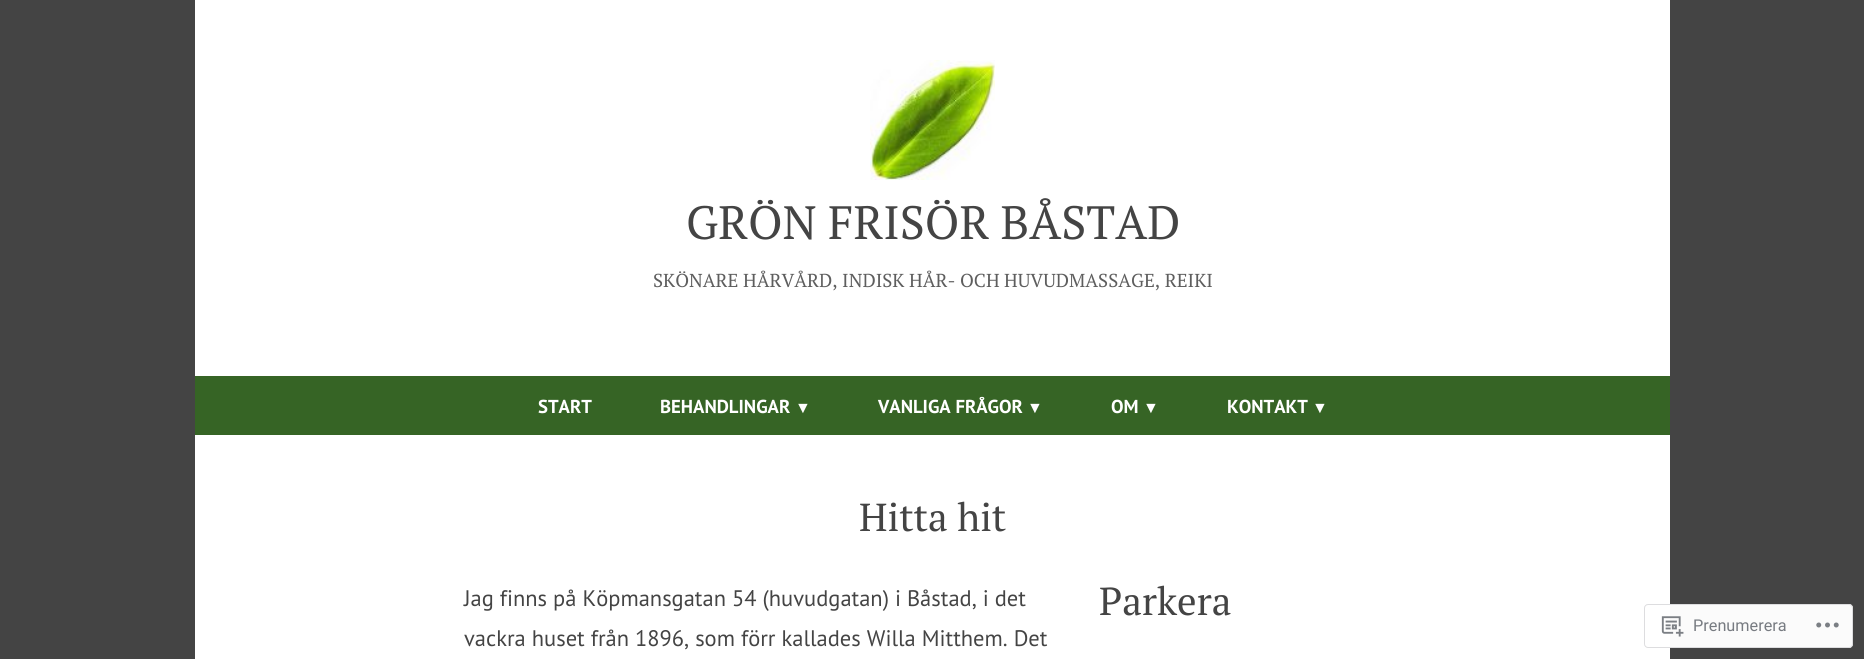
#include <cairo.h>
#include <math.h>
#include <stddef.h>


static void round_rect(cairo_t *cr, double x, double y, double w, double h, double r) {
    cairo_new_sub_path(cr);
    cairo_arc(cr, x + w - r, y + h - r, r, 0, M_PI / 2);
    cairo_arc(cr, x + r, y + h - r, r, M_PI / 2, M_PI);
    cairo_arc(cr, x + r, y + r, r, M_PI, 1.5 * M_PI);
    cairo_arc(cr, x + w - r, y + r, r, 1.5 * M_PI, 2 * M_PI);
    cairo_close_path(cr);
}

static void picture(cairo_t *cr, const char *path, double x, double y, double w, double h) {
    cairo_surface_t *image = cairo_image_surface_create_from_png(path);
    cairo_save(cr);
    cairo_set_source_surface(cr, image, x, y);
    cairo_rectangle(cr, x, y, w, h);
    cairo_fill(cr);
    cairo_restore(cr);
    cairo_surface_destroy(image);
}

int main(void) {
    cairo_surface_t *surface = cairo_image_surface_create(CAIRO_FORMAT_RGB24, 1864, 659);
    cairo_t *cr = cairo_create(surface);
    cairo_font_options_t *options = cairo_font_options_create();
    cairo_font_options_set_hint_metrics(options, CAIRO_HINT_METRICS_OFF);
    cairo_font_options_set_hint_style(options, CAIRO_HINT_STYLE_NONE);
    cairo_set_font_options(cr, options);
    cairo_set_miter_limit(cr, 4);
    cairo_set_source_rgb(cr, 0.267, 0.267, 0.267);
    cairo_paint(cr);
    cairo_set_source_rgb(cr, 1, 1, 1);
    cairo_rectangle(cr, 195, 0, 1475, 659);
    cairo_fill(cr);
    picture(cr, "img1.png", 870, 60, 125, 120);
    cairo_select_font_face(cr, "PT Serif", CAIRO_FONT_SLANT_NORMAL, CAIRO_FONT_WEIGHT_NORMAL);
    cairo_set_font_size(cr, 46.75);
    cairo_set_source_rgb(cr, 0.267, 0.267, 0.267);
    cairo_move_to(cr, 686, 239);
    cairo_show_text(cr, "GRÖN FRISÖR BÅSTAD");
    cairo_set_font_size(cr, 18.75);
    cairo_set_source_rgb(cr, 0.369, 0.369, 0.369);
    cairo_move_to(cr, 653, 287);
    cairo_show_text(cr, "SKÖNARE HÅRVÅRD, INDISK HÅR- OCH HUVUDMASSAGE, REIKI");
    cairo_set_source_rgb(cr, 0.212, 0.392, 0.145);
    cairo_rectangle(cr, 195, 376, 1475, 59);
    cairo_fill(cr);
    cairo_select_font_face(cr, "PT Sans", CAIRO_FONT_SLANT_NORMAL, CAIRO_FONT_WEIGHT_BOLD);
    cairo_set_source_rgb(cr, 1, 1, 1);
    cairo_move_to(cr, 538, 413);
    cairo_show_text(cr, "START");
    cairo_move_to(cr, 660, 413);
    cairo_show_text(cr, "BEHANDLINGAR");
    cairo_select_font_face(cr, "Liberation Sans", CAIRO_FONT_SLANT_NORMAL, CAIRO_FONT_WEIGHT_BOLD);
    cairo_set_font_size(cr, 16);
    cairo_move_to(cr, 795, 413);
    cairo_show_text(cr, "▼");
    cairo_select_font_face(cr, "PT Sans", CAIRO_FONT_SLANT_NORMAL, CAIRO_FONT_WEIGHT_BOLD);
    cairo_set_font_size(cr, 18.75);
    cairo_move_to(cr, 878, 413);
    cairo_show_text(cr, "VANLIGA FRÅGOR");
    cairo_select_font_face(cr, "Liberation Sans", CAIRO_FONT_SLANT_NORMAL, CAIRO_FONT_WEIGHT_BOLD);
    cairo_set_font_size(cr, 16);
    cairo_move_to(cr, 1027, 413);
    cairo_show_text(cr, "▼");
    cairo_select_font_face(cr, "PT Sans", CAIRO_FONT_SLANT_NORMAL, CAIRO_FONT_WEIGHT_BOLD);
    cairo_set_font_size(cr, 18.75);
    cairo_move_to(cr, 1111, 413);
    cairo_show_text(cr, "OM");
    cairo_select_font_face(cr, "Liberation Sans", CAIRO_FONT_SLANT_NORMAL, CAIRO_FONT_WEIGHT_BOLD);
    cairo_set_font_size(cr, 16);
    cairo_move_to(cr, 1143, 413);
    cairo_show_text(cr, "▼");
    cairo_select_font_face(cr, "PT Sans", CAIRO_FONT_SLANT_NORMAL, CAIRO_FONT_WEIGHT_BOLD);
    cairo_set_font_size(cr, 18.75);
    cairo_move_to(cr, 1227, 413);
    cairo_show_text(cr, "KONTAKT");
    cairo_select_font_face(cr, "Liberation Sans", CAIRO_FONT_SLANT_NORMAL, CAIRO_FONT_WEIGHT_BOLD);
    cairo_set_font_size(cr, 16);
    cairo_move_to(cr, 1312, 413);
    cairo_show_text(cr, "▼");
    cairo_select_font_face(cr, "PT Serif", CAIRO_FONT_SLANT_NORMAL, CAIRO_FONT_WEIGHT_NORMAL);
    cairo_set_font_size(cr, 39);
    cairo_set_source_rgb(cr, 0.267, 0.267, 0.267);
    cairo_move_to(cr, 859, 531);
    cairo_show_text(cr, "Hitta hit");
    cairo_select_font_face(cr, "PT Sans", CAIRO_FONT_SLANT_NORMAL, CAIRO_FONT_WEIGHT_NORMAL);
    cairo_set_font_size(cr, 22.5);
    cairo_move_to(cr, 464, 606);
    cairo_show_text(cr, "Jag finns på Köpmansgatan 54 (huvudgatan) i Båstad, i det");
    cairo_move_to(cr, 464, 646);
    cairo_show_text(cr, "vackra huset från 1896, som förr kallades Willa Mitthem. Det");
    cairo_select_font_face(cr, "PT Serif", CAIRO_FONT_SLANT_NORMAL, CAIRO_FONT_WEIGHT_NORMAL);
    cairo_set_font_size(cr, 39);
    cairo_move_to(cr, 1099, 615);
    cairo_show_text(cr, "Parkera");
    cairo_set_source_rgba(cr, 1, 1, 1, 0.98);
    round_rect(cr, 1644, 604, 209, 44, 4);
    cairo_fill(cr);
    round_rect(cr, 1644.5, 604.5, 208, 43, 3.5);
    cairo_set_source_rgba(cr, 0.863, 0.863, 0.871, 0.98);
    cairo_set_line_width(cr, 1);
    cairo_stroke(cr);
    picture(cr, "img2.png", 1661, 616, 23, 21);
    cairo_select_font_face(cr, "Roboto", CAIRO_FONT_SLANT_NORMAL, CAIRO_FONT_WEIGHT_NORMAL);
    cairo_set_font_size(cr, 16.25);
    cairo_set_source_rgb(cr, 0.467, 0.482, 0.506);
    cairo_move_to(cr, 1693, 631);
    cairo_show_text(cr, "Prenumerera");
    picture(cr, "img3.png", 1816, 622, 23, 6);
    cairo_surface_write_to_png(surface, "page.png");
    cairo_font_options_destroy(options);
    cairo_destroy(cr);
    cairo_surface_destroy(surface);
    return 0;
}
